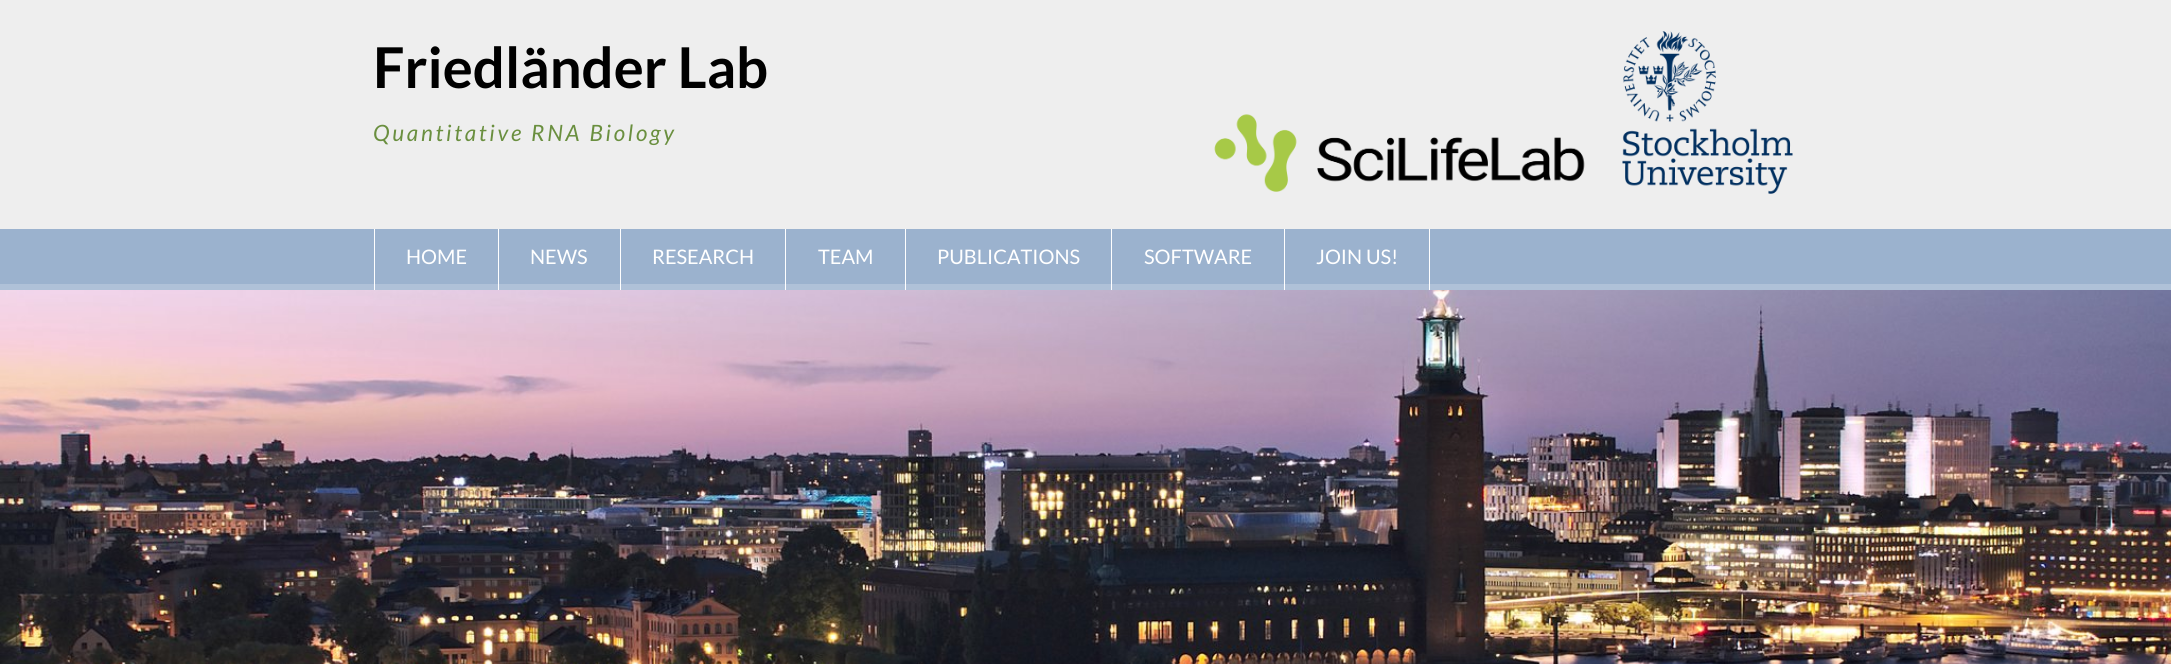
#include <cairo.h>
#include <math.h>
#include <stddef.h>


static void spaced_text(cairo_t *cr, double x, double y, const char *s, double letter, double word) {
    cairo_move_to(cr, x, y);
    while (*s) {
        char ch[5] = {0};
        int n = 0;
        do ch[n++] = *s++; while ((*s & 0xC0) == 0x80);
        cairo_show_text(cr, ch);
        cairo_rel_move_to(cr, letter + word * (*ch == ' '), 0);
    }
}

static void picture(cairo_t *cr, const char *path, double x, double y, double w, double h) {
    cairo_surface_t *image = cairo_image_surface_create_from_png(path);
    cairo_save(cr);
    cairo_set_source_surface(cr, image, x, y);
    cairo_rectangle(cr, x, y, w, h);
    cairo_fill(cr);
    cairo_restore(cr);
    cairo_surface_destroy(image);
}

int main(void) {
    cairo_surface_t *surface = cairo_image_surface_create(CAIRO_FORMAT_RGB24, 2171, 664);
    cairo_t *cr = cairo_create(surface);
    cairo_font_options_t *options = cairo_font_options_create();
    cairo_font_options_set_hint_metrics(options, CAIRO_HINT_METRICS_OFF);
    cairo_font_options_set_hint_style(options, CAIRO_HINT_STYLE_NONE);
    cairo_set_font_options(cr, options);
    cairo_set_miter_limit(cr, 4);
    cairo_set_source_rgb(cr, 0.933, 0.933, 0.933);
    cairo_paint(cr);
    cairo_select_font_face(cr, "Lato", CAIRO_FONT_SLANT_NORMAL, CAIRO_FONT_WEIGHT_BOLD);
    cairo_set_font_size(cr, 56.25);
    cairo_set_source_rgb(cr, 0, 0, 0);
    cairo_move_to(cr, 373, 88);
    cairo_show_text(cr, "Friedländer Lab");
    cairo_select_font_face(cr, "Lato", CAIRO_FONT_SLANT_ITALIC, CAIRO_FONT_WEIGHT_NORMAL);
    cairo_set_font_size(cr, 22.5);
    cairo_set_source_rgb(cr, 0.416, 0.561, 0.247);
    spaced_text(cr, 373, 141, "Quantitative RNA Biology", 2.75, 0);
    picture(cr, "img1.png", 1214, 114, 371, 78);
    picture(cr, "img2.png", 1622, 31, 171, 163);
    cairo_set_source_rgb(cr, 0.608, 0.698, 0.808);
    cairo_rectangle(cr, 0, 229, 2171, 55);
    cairo_fill(cr);
    cairo_set_source_rgb(cr, 0.686, 0.757, 0.847);
    cairo_rectangle(cr, 0, 284, 2171, 6);
    cairo_fill(cr);
    cairo_set_source_rgb(cr, 1, 1, 1);
    cairo_rectangle(cr, 498, 229, 1, 61);
    cairo_fill(cr);
    cairo_rectangle(cr, 374, 229, 1, 61);
    cairo_fill(cr);
    cairo_select_font_face(cr, "Lato", CAIRO_FONT_SLANT_NORMAL, CAIRO_FONT_WEIGHT_NORMAL);
    cairo_set_font_size(cr, 20);
    cairo_move_to(cr, 406, 264);
    cairo_show_text(cr, "HOME");
    cairo_rectangle(cr, 620, 229, 1, 61);
    cairo_fill(cr);
    cairo_move_to(cr, 530, 264);
    cairo_show_text(cr, "NEWS");
    cairo_rectangle(cr, 785, 229, 1, 61);
    cairo_fill(cr);
    cairo_move_to(cr, 652, 264);
    cairo_show_text(cr, "RESEARCH");
    cairo_rectangle(cr, 905, 229, 1, 61);
    cairo_fill(cr);
    cairo_move_to(cr, 818, 264);
    cairo_show_text(cr, "TEAM");
    cairo_rectangle(cr, 1111, 229, 1, 61);
    cairo_fill(cr);
    cairo_move_to(cr, 937, 264);
    cairo_show_text(cr, "PUBLICATIONS");
    cairo_rectangle(cr, 1284, 229, 1, 61);
    cairo_fill(cr);
    cairo_move_to(cr, 1144, 264);
    cairo_show_text(cr, "SOFTWARE");
    cairo_rectangle(cr, 1429, 229, 1, 61);
    cairo_fill(cr);
    cairo_move_to(cr, 1316, 264);
    cairo_show_text(cr, "JOIN US!");
    picture(cr, "img3.png", 0, 290, 2171, 374);
    cairo_surface_write_to_png(surface, "page.png");
    cairo_font_options_destroy(options);
    cairo_destroy(cr);
    cairo_surface_destroy(surface);
    return 0;
}
